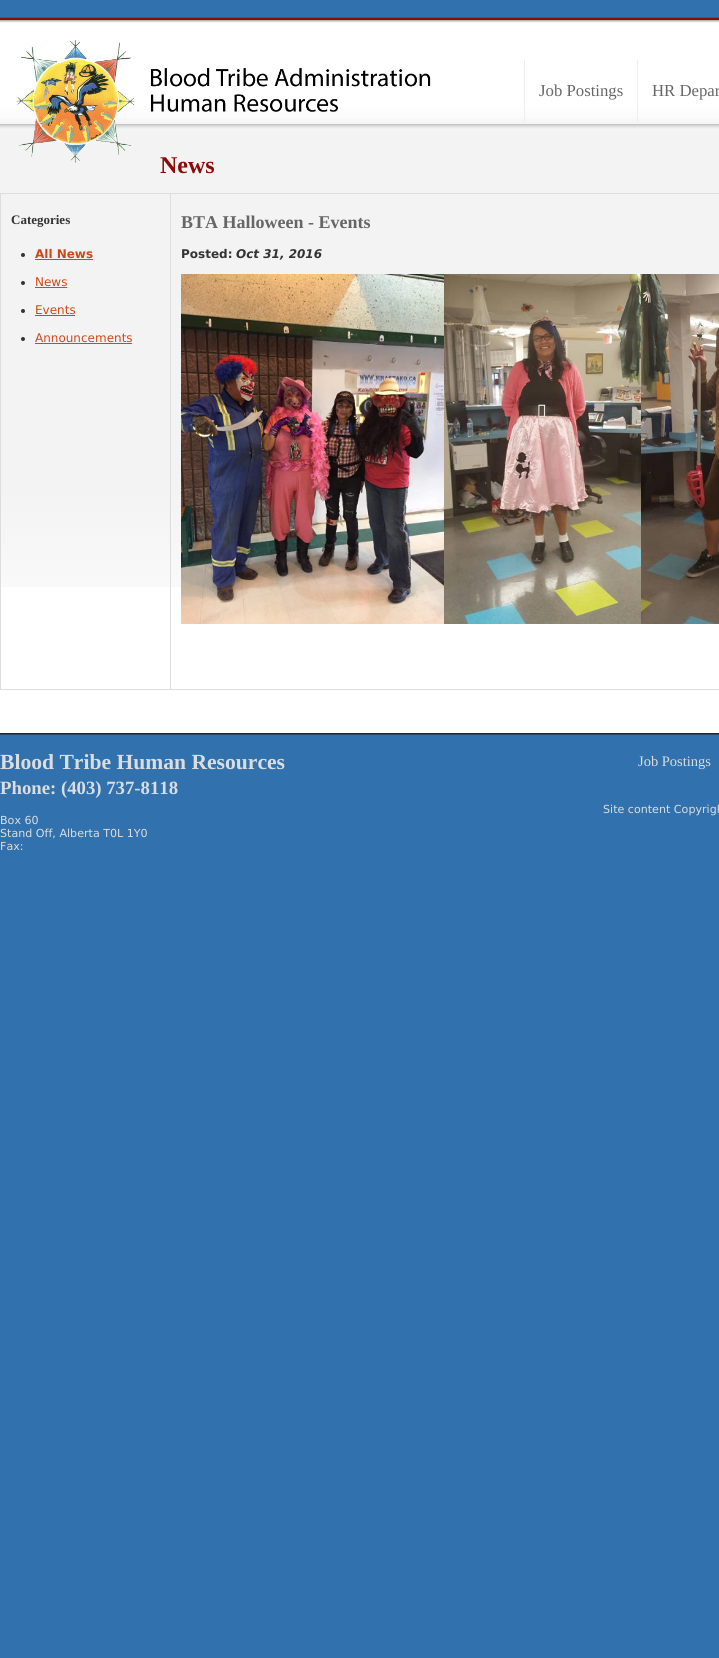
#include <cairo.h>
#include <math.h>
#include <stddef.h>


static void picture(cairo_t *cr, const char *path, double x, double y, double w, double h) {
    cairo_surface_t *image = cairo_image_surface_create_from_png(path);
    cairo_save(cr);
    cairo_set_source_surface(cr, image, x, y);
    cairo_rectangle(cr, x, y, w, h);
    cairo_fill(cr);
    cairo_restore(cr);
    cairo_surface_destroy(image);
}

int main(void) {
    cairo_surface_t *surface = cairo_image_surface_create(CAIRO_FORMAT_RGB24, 719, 1658);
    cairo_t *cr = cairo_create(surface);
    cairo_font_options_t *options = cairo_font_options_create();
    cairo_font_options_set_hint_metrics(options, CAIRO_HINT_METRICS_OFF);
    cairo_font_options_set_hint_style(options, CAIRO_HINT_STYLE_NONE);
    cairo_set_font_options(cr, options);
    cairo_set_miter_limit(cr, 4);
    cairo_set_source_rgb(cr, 0.188, 0.443, 0.682);
    cairo_paint(cr);
    cairo_set_source_rgb(cr, 1, 1, 1);
    cairo_rectangle(cr, 0, 587, 719, 146);
    cairo_fill(cr);
    picture(cr, "img1.png", 0, 0, 719, 587);
    picture(cr, "img2.png", 16, 40, 415, 123);
    cairo_set_source_rgb(cr, 0.933, 0.933, 0.933);
    cairo_rectangle(cr, 524, 60, 1, 62);
    cairo_fill(cr);
    cairo_select_font_face(cr, "Liberation Serif", CAIRO_FONT_SLANT_NORMAL, CAIRO_FONT_WEIGHT_NORMAL);
    cairo_set_font_size(cr, 16.75);
    cairo_set_source_rgb(cr, 0.4, 0.4, 0.4);
    cairo_move_to(cr, 539, 96);
    cairo_show_text(cr, "Job Postings");
    cairo_set_source_rgb(cr, 0.933, 0.933, 0.933);
    cairo_rectangle(cr, 637, 60, 1, 62);
    cairo_fill(cr);
    cairo_set_source_rgb(cr, 0.4, 0.4, 0.4);
    cairo_move_to(cr, 652, 96);
    cairo_show_text(cr, "HR Depar");
    cairo_select_font_face(cr, "Liberation Serif", CAIRO_FONT_SLANT_NORMAL, CAIRO_FONT_WEIGHT_BOLD);
    cairo_set_font_size(cr, 24);
    cairo_set_source_rgb(cr, 0.537, 0.051, 0.02);
    cairo_move_to(cr, 160, 173);
    cairo_show_text(cr, "News");
    cairo_set_source_rgb(cr, 0.867, 0.867, 0.867);
    cairo_rectangle(cr, 170, 193, 549, 1);
    cairo_fill(cr);
    cairo_rectangle(cr, 170, 689, 549, 1);
    cairo_fill(cr);
    cairo_rectangle(cr, 170, 193, 1, 497);
    cairo_fill(cr);
    cairo_rectangle(cr, 0, 193, 171, 1);
    cairo_fill(cr);
    cairo_rectangle(cr, 0, 689, 171, 1);
    cairo_fill(cr);
    cairo_rectangle(cr, 0, 193, 1, 497);
    cairo_fill(cr);
    cairo_set_font_size(cr, 13);
    cairo_set_source_rgb(cr, 0.2, 0.2, 0.2);
    cairo_move_to(cr, 11, 224);
    cairo_show_text(cr, "Categories");
    cairo_new_path(cr);
    cairo_arc(cr, 23, 255, 2, 0, 2 * M_PI);
    cairo_fill(cr);
    cairo_select_font_face(cr, "DejaVu Sans", CAIRO_FONT_SLANT_NORMAL, CAIRO_FONT_WEIGHT_BOLD);
    cairo_set_font_size(cr, 12);
    cairo_set_source_rgb(cr, 0.82, 0.278, 0.094);
    cairo_move_to(cr, 35, 258);
    cairo_show_text(cr, "All News");
    cairo_rectangle(cr, 35, 259, 58, 1);
    cairo_fill(cr);
    cairo_set_source_rgb(cr, 0.2, 0.2, 0.2);
    cairo_arc(cr, 23, 283, 2, 0, 2 * M_PI);
    cairo_fill(cr);
    cairo_select_font_face(cr, "DejaVu Sans", CAIRO_FONT_SLANT_NORMAL, CAIRO_FONT_WEIGHT_NORMAL);
    cairo_set_source_rgb(cr, 0.82, 0.278, 0.094);
    cairo_move_to(cr, 35, 286);
    cairo_show_text(cr, "News");
    cairo_rectangle(cr, 35, 287, 32, 1);
    cairo_fill(cr);
    cairo_set_source_rgb(cr, 0.2, 0.2, 0.2);
    cairo_arc(cr, 23, 311, 2, 0, 2 * M_PI);
    cairo_fill(cr);
    cairo_set_source_rgb(cr, 0.82, 0.278, 0.094);
    cairo_move_to(cr, 35, 314);
    cairo_show_text(cr, "Events");
    cairo_rectangle(cr, 35, 315, 40, 1);
    cairo_fill(cr);
    cairo_set_source_rgb(cr, 0.2, 0.2, 0.2);
    cairo_arc(cr, 23, 339, 2, 0, 2 * M_PI);
    cairo_fill(cr);
    cairo_set_source_rgb(cr, 0.82, 0.278, 0.094);
    cairo_move_to(cr, 35, 342);
    cairo_show_text(cr, "Announcements");
    cairo_rectangle(cr, 35, 343, 97, 1);
    cairo_fill(cr);
    cairo_select_font_face(cr, "Liberation Serif", CAIRO_FONT_SLANT_NORMAL, CAIRO_FONT_WEIGHT_BOLD);
    cairo_set_font_size(cr, 18);
    cairo_set_source_rgb(cr, 0.4, 0.4, 0.4);
    cairo_move_to(cr, 181, 228);
    cairo_show_text(cr, "BTA Halloween - Events");
    cairo_select_font_face(cr, "DejaVu Sans", CAIRO_FONT_SLANT_NORMAL, CAIRO_FONT_WEIGHT_BOLD);
    cairo_set_font_size(cr, 12);
    cairo_set_source_rgb(cr, 0.2, 0.2, 0.2);
    cairo_move_to(cr, 181, 258);
    cairo_show_text(cr, "Posted:");
    cairo_select_font_face(cr, "DejaVu Sans", CAIRO_FONT_SLANT_ITALIC, CAIRO_FONT_WEIGHT_BOLD);
    cairo_move_to(cr, 236, 258);
    cairo_show_text(cr, "Oct 31, 2016");
    picture(cr, "img3.png", 181, 274, 263, 350);
    picture(cr, "img4.png", 444, 274, 197, 350);
    picture(cr, "img5.png", 641, 274, 78, 350);
    picture(cr, "img6.png", 0, 733, 719, 2);
    cairo_select_font_face(cr, "Liberation Serif", CAIRO_FONT_SLANT_NORMAL, CAIRO_FONT_WEIGHT_BOLD);
    cairo_set_font_size(cr, 21.6);
    cairo_set_source_rgb(cr, 0.867, 0.867, 0.867);
    cairo_move_to(cr, 0, 769);
    cairo_show_text(cr, "Blood Tribe Human Resources");
    cairo_set_font_size(cr, 18.75);
    cairo_move_to(cr, 0, 794);
    cairo_show_text(cr, "Phone: (403) 737-8118");
    cairo_select_font_face(cr, "DejaVu Sans", CAIRO_FONT_SLANT_NORMAL, CAIRO_FONT_WEIGHT_NORMAL);
    cairo_set_font_size(cr, 11.1);
    cairo_move_to(cr, 0, 824);
    cairo_show_text(cr, "Box 60");
    cairo_move_to(cr, 0, 837);
    cairo_show_text(cr, "Stand Off, Alberta T0L 1Y0");
    cairo_move_to(cr, 0, 850);
    cairo_show_text(cr, "Fax:");
    cairo_select_font_face(cr, "Liberation Serif", CAIRO_FONT_SLANT_NORMAL, CAIRO_FONT_WEIGHT_NORMAL);
    cairo_set_font_size(cr, 14.5);
    cairo_move_to(cr, 638, 766);
    cairo_show_text(cr, "Job Postings");
    cairo_select_font_face(cr, "DejaVu Sans", CAIRO_FONT_SLANT_NORMAL, CAIRO_FONT_WEIGHT_NORMAL);
    cairo_set_font_size(cr, 11.1);
    cairo_move_to(cr, 603, 813);
    cairo_show_text(cr, "Site content Copyrigh");
    cairo_surface_write_to_png(surface, "page.png");
    cairo_font_options_destroy(options);
    cairo_destroy(cr);
    cairo_surface_destroy(surface);
    return 0;
}
